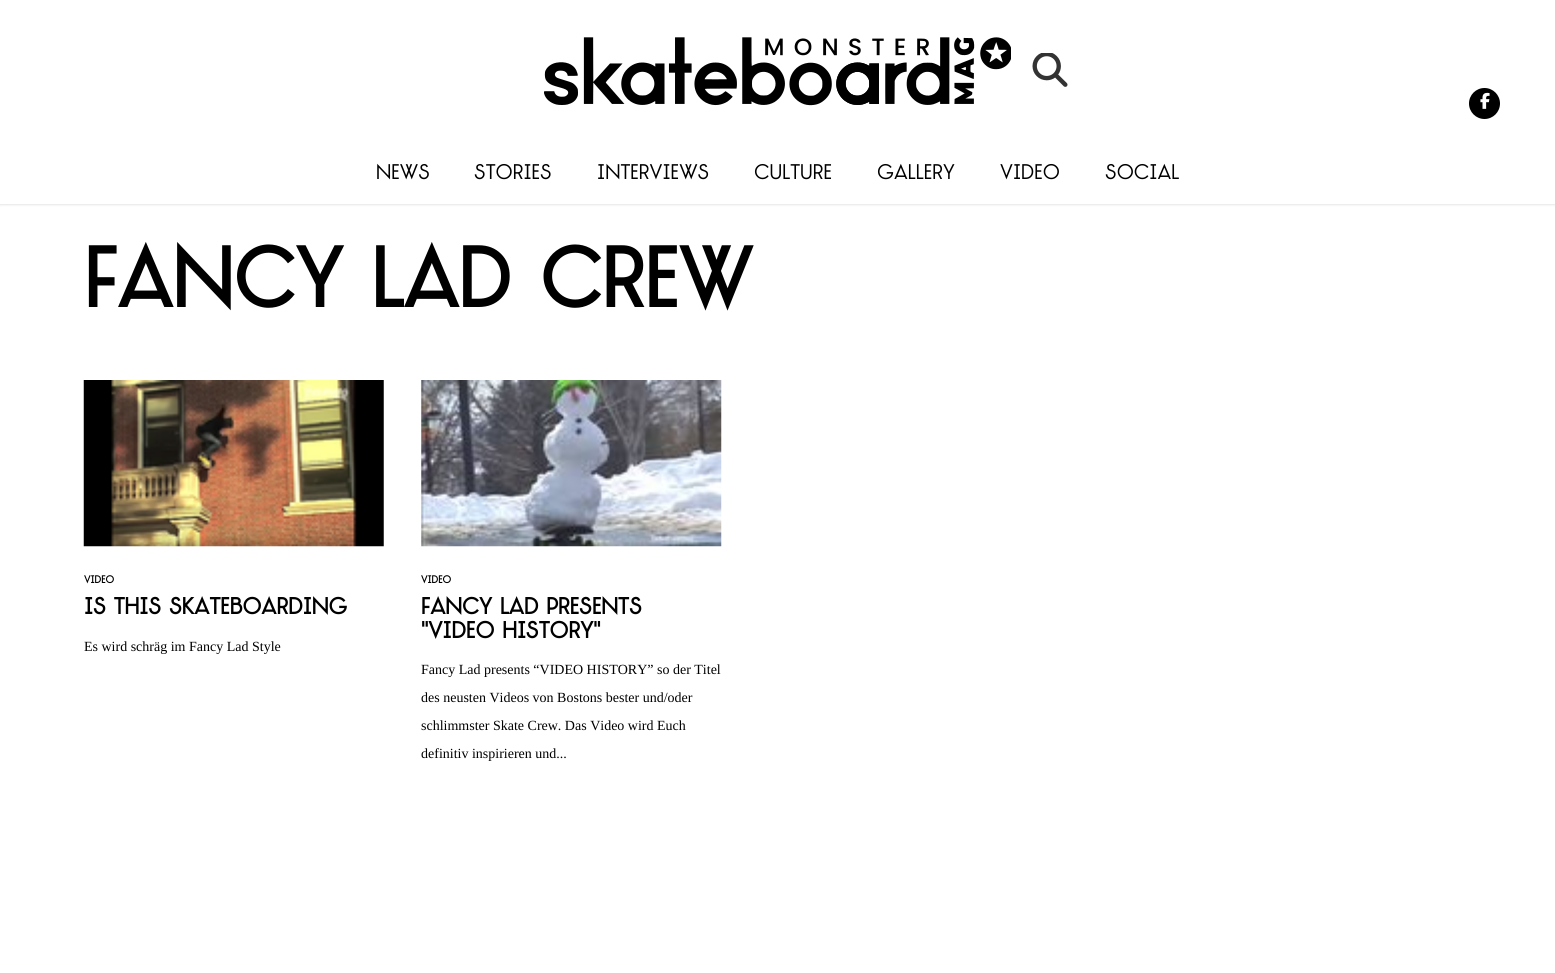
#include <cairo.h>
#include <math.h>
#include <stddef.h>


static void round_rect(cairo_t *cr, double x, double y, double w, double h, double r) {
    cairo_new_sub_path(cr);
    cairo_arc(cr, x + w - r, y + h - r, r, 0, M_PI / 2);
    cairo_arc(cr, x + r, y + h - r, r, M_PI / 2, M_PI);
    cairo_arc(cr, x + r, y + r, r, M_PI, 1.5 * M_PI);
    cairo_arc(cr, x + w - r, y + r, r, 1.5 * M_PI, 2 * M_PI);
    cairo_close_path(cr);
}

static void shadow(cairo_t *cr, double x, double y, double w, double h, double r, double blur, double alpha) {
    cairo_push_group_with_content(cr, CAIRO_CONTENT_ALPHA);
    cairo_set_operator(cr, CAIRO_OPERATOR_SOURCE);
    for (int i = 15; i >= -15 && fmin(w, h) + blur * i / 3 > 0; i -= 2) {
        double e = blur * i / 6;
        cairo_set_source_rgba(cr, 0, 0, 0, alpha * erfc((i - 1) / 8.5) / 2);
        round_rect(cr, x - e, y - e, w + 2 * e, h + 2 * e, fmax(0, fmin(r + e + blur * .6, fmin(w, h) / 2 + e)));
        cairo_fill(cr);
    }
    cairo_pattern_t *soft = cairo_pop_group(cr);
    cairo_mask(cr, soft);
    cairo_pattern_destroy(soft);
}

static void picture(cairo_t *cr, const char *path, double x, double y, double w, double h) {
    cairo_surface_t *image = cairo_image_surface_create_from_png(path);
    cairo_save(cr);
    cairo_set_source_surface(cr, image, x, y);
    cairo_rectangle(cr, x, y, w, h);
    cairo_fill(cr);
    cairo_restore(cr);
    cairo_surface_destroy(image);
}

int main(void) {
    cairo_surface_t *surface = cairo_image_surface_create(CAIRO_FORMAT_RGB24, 1555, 973);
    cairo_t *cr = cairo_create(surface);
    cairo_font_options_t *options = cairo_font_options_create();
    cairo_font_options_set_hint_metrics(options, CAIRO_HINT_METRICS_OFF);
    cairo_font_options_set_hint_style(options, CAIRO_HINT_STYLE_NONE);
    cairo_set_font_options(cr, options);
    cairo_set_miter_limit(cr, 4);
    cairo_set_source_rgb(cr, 1, 1, 1);
    cairo_paint(cr);
    cairo_set_source_rgb(cr, 0, 0, 0);
    shadow(cr, 0, 1, 1555, 204, 0, 1, 0.1);
    cairo_set_source_rgb(cr, 1, 1, 1);
    cairo_rectangle(cr, 0, 0, 1555, 204);
    cairo_fill(cr);
    picture(cr, "img1.png", 544, 37, 467, 69);
    picture(cr, "img2.png", 1032, 53, 36, 34);
    cairo_set_source_rgb(cr, 0, 0, 0);
    cairo_arc(cr, 1484.5, 103.5, 15.5, 0, 2 * M_PI);
    cairo_fill(cr);
    picture(cr, "img3.png", 1480, 92, 10, 17);
    cairo_select_font_face(cr, "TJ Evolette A", CAIRO_FONT_SLANT_NORMAL, CAIRO_FONT_WEIGHT_NORMAL);
    cairo_set_font_size(cr, 20);
    cairo_move_to(cr, 376, 179);
    cairo_show_text(cr, "News");
    cairo_move_to(cr, 474, 179);
    cairo_show_text(cr, "Stories");
    cairo_move_to(cr, 597, 179);
    cairo_show_text(cr, "Interviews");
    cairo_move_to(cr, 754, 179);
    cairo_show_text(cr, "Culture");
    cairo_move_to(cr, 877, 179);
    cairo_show_text(cr, "Gallery");
    cairo_move_to(cr, 1000, 179);
    cairo_show_text(cr, "Video");
    cairo_move_to(cr, 1105, 179);
    cairo_show_text(cr, "Social");
    cairo_select_font_face(cr, "TJ Evolette A", CAIRO_FONT_SLANT_NORMAL, CAIRO_FONT_WEIGHT_BOLD);
    cairo_set_font_size(cr, 80);
    cairo_move_to(cr, 84, 307);
    cairo_show_text(cr, "Fancy Lad Crew");
    picture(cr, "img4.png", 83, 380, 301, 167);
    cairo_set_font_size(cr, 10);
    cairo_move_to(cr, 84, 583);
    cairo_show_text(cr, "VIDEO");
    cairo_set_font_size(cr, 22);
    cairo_move_to(cr, 84, 614);
    cairo_show_text(cr, "Is this Skateboarding");
    cairo_select_font_face(cr, "Liberation Serif", CAIRO_FONT_SLANT_NORMAL, CAIRO_FONT_WEIGHT_NORMAL);
    cairo_set_font_size(cr, 14);
    cairo_move_to(cr, 84, 651);
    cairo_show_text(cr, "Es wird schräg im Fancy Lad Style");
    picture(cr, "img5.png", 421, 380, 301, 167);
    cairo_select_font_face(cr, "TJ Evolette A", CAIRO_FONT_SLANT_NORMAL, CAIRO_FONT_WEIGHT_BOLD);
    cairo_set_font_size(cr, 10);
    cairo_move_to(cr, 421, 583);
    cairo_show_text(cr, "VIDEO");
    cairo_set_font_size(cr, 22);
    cairo_move_to(cr, 421, 614);
    cairo_show_text(cr, "Fancy Lad presents");
    cairo_move_to(cr, 421, 638);
    cairo_show_text(cr, "\"VIDEO HISTORY\"");
    cairo_select_font_face(cr, "Liberation Serif", CAIRO_FONT_SLANT_NORMAL, CAIRO_FONT_WEIGHT_NORMAL);
    cairo_set_font_size(cr, 14);
    cairo_move_to(cr, 421, 674);
    cairo_show_text(cr, "Fancy Lad presents “VIDEO HISTORY” so der Titel");
    cairo_move_to(cr, 421, 702);
    cairo_show_text(cr, "des neusten Videos von Bostons bester und/oder");
    cairo_move_to(cr, 421, 730);
    cairo_show_text(cr, "schlimmster Skate Crew. Das Video wird Euch");
    cairo_move_to(cr, 421, 758);
    cairo_show_text(cr, "definitiv inspirieren und...");
    cairo_surface_write_to_png(surface, "page.png");
    cairo_font_options_destroy(options);
    cairo_destroy(cr);
    cairo_surface_destroy(surface);
    return 0;
}
